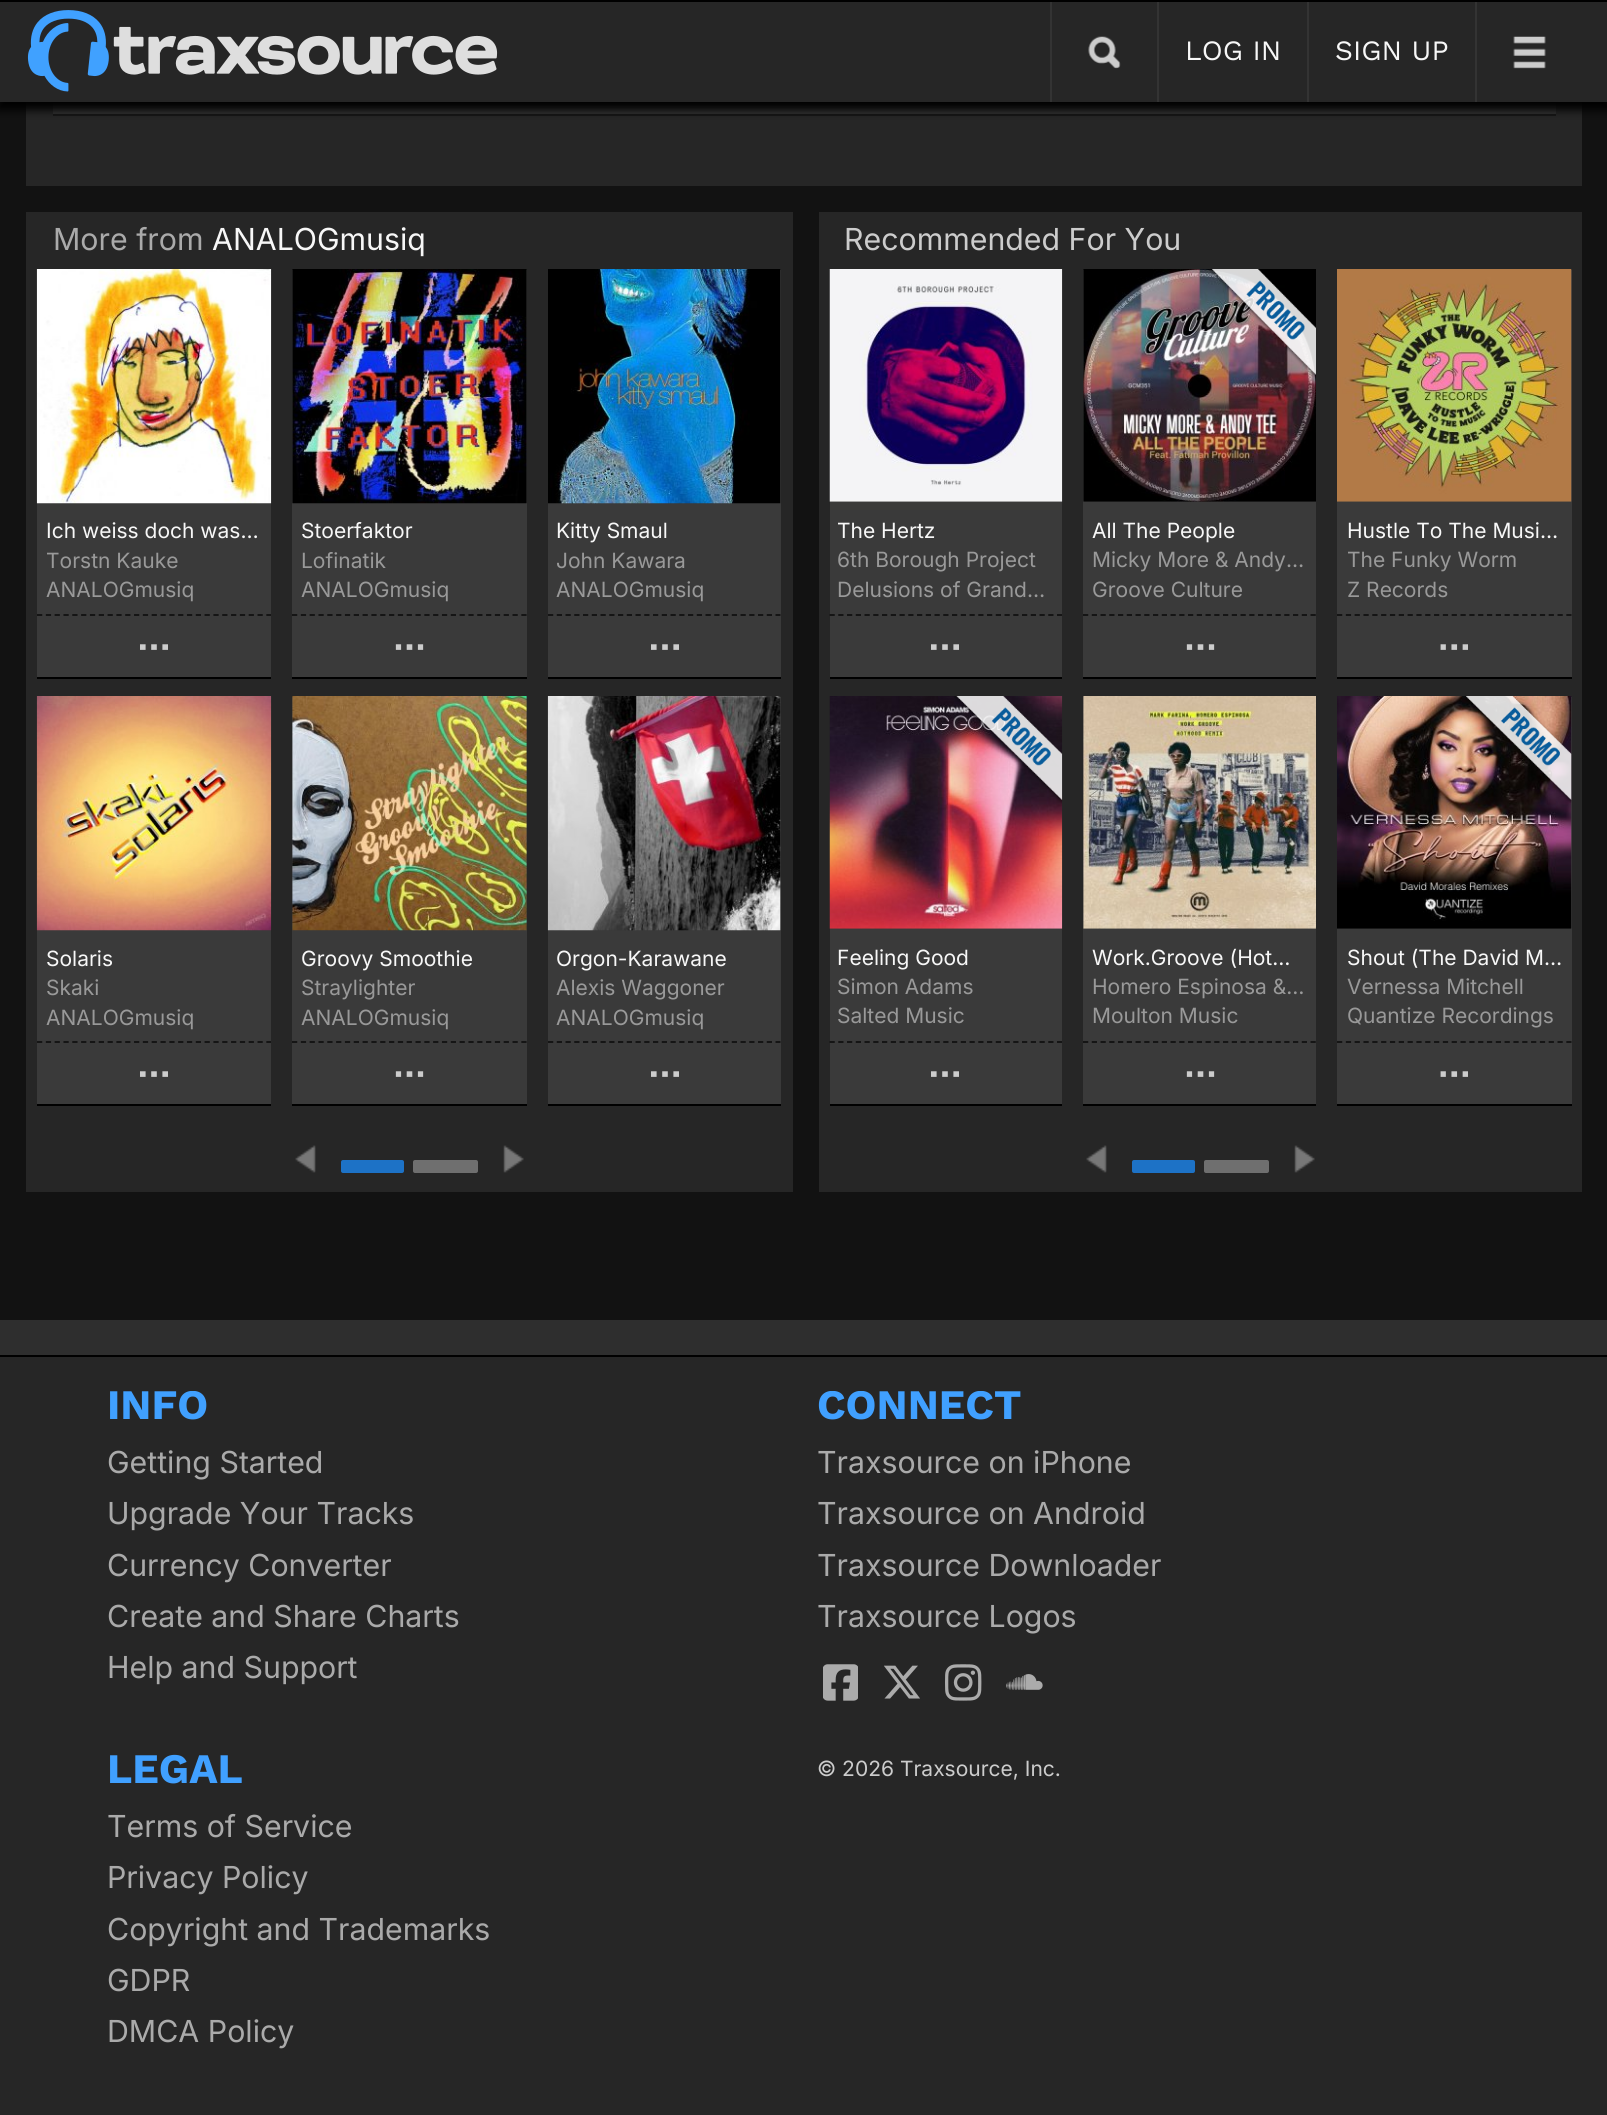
#include <cairo.h>
#include <math.h>
#include <stddef.h>


static void round_rect(cairo_t *cr, double x, double y, double w, double h, double r) {
    cairo_new_sub_path(cr);
    cairo_arc(cr, x + w - r, y + h - r, r, 0, M_PI / 2);
    cairo_arc(cr, x + r, y + h - r, r, M_PI / 2, M_PI);
    cairo_arc(cr, x + r, y + r, r, M_PI, 1.5 * M_PI);
    cairo_arc(cr, x + w - r, y + r, r, 1.5 * M_PI, 2 * M_PI);
    cairo_close_path(cr);
}

static void shadow(cairo_t *cr, double x, double y, double w, double h, double r, double blur, double alpha) {
    cairo_push_group_with_content(cr, CAIRO_CONTENT_ALPHA);
    cairo_set_operator(cr, CAIRO_OPERATOR_SOURCE);
    for (int i = 15; i >= -15 && fmin(w, h) + blur * i / 3 > 0; i -= 2) {
        double e = blur * i / 6;
        cairo_set_source_rgba(cr, 0, 0, 0, alpha * erfc((i - 1) / 8.5) / 2);
        round_rect(cr, x - e, y - e, w + 2 * e, h + 2 * e, fmax(0, fmin(r + e + blur * .6, fmin(w, h) / 2 + e)));
        cairo_fill(cr);
    }
    cairo_pattern_t *soft = cairo_pop_group(cr);
    cairo_mask(cr, soft);
    cairo_pattern_destroy(soft);
}

static void picture(cairo_t *cr, const char *path, double x, double y, double w, double h) {
    cairo_surface_t *image = cairo_image_surface_create_from_png(path);
    cairo_save(cr);
    cairo_set_source_surface(cr, image, x, y);
    cairo_rectangle(cr, x, y, w, h);
    cairo_fill(cr);
    cairo_restore(cr);
    cairo_surface_destroy(image);
}

int main(void) {
    cairo_surface_t *surface = cairo_image_surface_create(CAIRO_FORMAT_RGB24, 1607, 2115);
    cairo_t *cr = cairo_create(surface);
    cairo_font_options_t *options = cairo_font_options_create();
    cairo_font_options_set_hint_metrics(options, CAIRO_HINT_METRICS_OFF);
    cairo_font_options_set_hint_style(options, CAIRO_HINT_STYLE_NONE);
    cairo_set_font_options(cr, options);
    cairo_set_miter_limit(cr, 4);
    cairo_set_source_rgb(cr, 0.071, 0.071, 0.071);
    cairo_paint(cr);
    cairo_set_source_rgb(cr, 0.149, 0.149, 0.149);
    cairo_rectangle(cr, 26, 102, 1556, 84);
    cairo_fill(cr);
    cairo_set_source_rgb(cr, 0.2, 0.2, 0.2);
    cairo_rectangle(cr, 53, 102, 1503, 12);
    cairo_fill(cr);
    cairo_set_source_rgb(cr, 0.086, 0.086, 0.086);
    cairo_rectangle(cr, 53, 114, 1503, 2);
    cairo_fill(cr);
    cairo_set_source_rgb(cr, 0, 0, 0);
    shadow(cr, -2, 5, 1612, 105, 0, 4.5, 1);
    cairo_set_source_rgb(cr, 0.149, 0.149, 0.149);
    cairo_rectangle(cr, 0, 2, 1607, 100);
    cairo_fill(cr);
    cairo_set_source_rgb(cr, 0.2, 0.2, 0.2);
    cairo_rectangle(cr, 1050, 0, 2, 102);
    cairo_fill(cr);
    cairo_rectangle(cr, 1157, 0, 2, 102);
    cairo_fill(cr);
    cairo_rectangle(cr, 1307, 0, 2, 102);
    cairo_fill(cr);
    cairo_rectangle(cr, 1475, 0, 2, 102);
    cairo_fill(cr);
    cairo_set_source_rgb(cr, 0, 0, 0);
    cairo_rectangle(cr, 0, 0, 1607, 2);
    cairo_fill(cr);
    picture(cr, "img1.png", 27, 10, 471, 82);
    picture(cr, "img2.png", 1088, 36, 33, 33);
    cairo_select_font_face(cr, "Work Sans", CAIRO_FONT_SLANT_NORMAL, CAIRO_FONT_WEIGHT_NORMAL);
    cairo_set_font_size(cr, 28);
    cairo_set_source_rgb(cr, 0.965, 0.965, 0.965);
    cairo_move_to(cr, 1185, 60);
    cairo_show_text(cr, "LOG IN");
    cairo_move_to(cr, 1335, 60);
    cairo_show_text(cr, "SIGN UP");
    picture(cr, "img3.png", 1513, 36, 33, 33);
    cairo_set_source_rgb(cr, 0.149, 0.149, 0.149);
    cairo_rectangle(cr, 26, 212, 767, 980);
    cairo_fill(cr);
    cairo_select_font_face(cr, "Inter", CAIRO_FONT_SLANT_NORMAL, CAIRO_FONT_WEIGHT_NORMAL);
    cairo_set_font_size(cr, 30.3);
    cairo_set_source_rgb(cr, 0.667, 0.667, 0.667);
    cairo_move_to(cr, 53, 250);
    cairo_show_text(cr, "More from");
    cairo_set_source_rgb(cr, 0.965, 0.965, 0.965);
    cairo_move_to(cr, 212, 250);
    cairo_show_text(cr, "ANALOGmusiq");
    cairo_set_source_rgb(cr, 0.227, 0.227, 0.227);
    cairo_rectangle(cr, 37, 503, 234, 174);
    cairo_fill(cr);
    picture(cr, "img4.png", 36, 269, 236, 235);
    cairo_set_font_size(cr, 21);
    cairo_set_source_rgb(cr, 0.965, 0.965, 0.965);
    cairo_move_to(cr, 46, 538);
    cairo_show_text(cr, "Ich weiss doch was…");
    cairo_set_source_rgb(cr, 0.6, 0.6, 0.6);
    cairo_move_to(cr, 46, 568);
    cairo_show_text(cr, "Torstn Kauke");
    cairo_move_to(cr, 46, 597);
    cairo_show_text(cr, "ANALOGmusiq");
    cairo_new_path(cr);
    cairo_move_to(cr, 37, 615);
    cairo_line_to(cr, 271, 615);
    cairo_set_source_rgb(cr, 0.067, 0.067, 0.067);
    cairo_set_line_width(cr, 1.8);
    cairo_set_dash(cr, (double[]){5.25, 3.57}, 2, 0);
    cairo_stroke(cr);
    cairo_set_source_rgb(cr, 0, 0, 0);
    cairo_rectangle(cr, 37, 677, 234, 2);
    cairo_fill(cr);
    picture(cr, "img5.png", 140, 644, 28, 6);
    cairo_set_source_rgb(cr, 0.227, 0.227, 0.227);
    cairo_rectangle(cr, 292, 270, 235, 407);
    cairo_fill(cr);
    picture(cr, "img6.png", 292, 269, 235, 235);
    cairo_set_source_rgb(cr, 0.965, 0.965, 0.965);
    cairo_move_to(cr, 301, 538);
    cairo_show_text(cr, "Stoerfaktor");
    cairo_set_source_rgb(cr, 0.6, 0.6, 0.6);
    cairo_move_to(cr, 301, 568);
    cairo_show_text(cr, "Lofinatik");
    cairo_move_to(cr, 301, 597);
    cairo_show_text(cr, "ANALOGmusiq");
    cairo_new_path(cr);
    cairo_move_to(cr, 292, 615);
    cairo_line_to(cr, 527, 615);
    cairo_set_source_rgb(cr, 0.067, 0.067, 0.067);
    cairo_stroke(cr);
    cairo_set_source_rgb(cr, 0, 0, 0);
    cairo_rectangle(cr, 292, 677, 235, 2);
    cairo_fill(cr);
    picture(cr, "img7.png", 395, 644, 29, 6);
    cairo_set_source_rgb(cr, 0.227, 0.227, 0.227);
    cairo_rectangle(cr, 548, 270, 233, 407);
    cairo_fill(cr);
    picture(cr, "img8.png", 548, 269, 233, 235);
    cairo_set_source_rgb(cr, 0.965, 0.965, 0.965);
    cairo_move_to(cr, 556, 538);
    cairo_show_text(cr, "Kitty Smaul");
    cairo_set_source_rgb(cr, 0.6, 0.6, 0.6);
    cairo_move_to(cr, 556, 568);
    cairo_show_text(cr, "John Kawara");
    cairo_move_to(cr, 556, 597);
    cairo_show_text(cr, "ANALOGmusiq");
    cairo_new_path(cr);
    cairo_move_to(cr, 548, 615);
    cairo_line_to(cr, 780.5, 615);
    cairo_set_source_rgb(cr, 0.067, 0.067, 0.067);
    cairo_set_dash(cr, (double[]){5.25, 3.5}, 2, 0);
    cairo_stroke(cr);
    cairo_set_source_rgb(cr, 0, 0, 0);
    cairo_rectangle(cr, 548, 677, 233, 2);
    cairo_fill(cr);
    picture(cr, "img5.png", 651, 644, 28, 6);
    cairo_set_source_rgb(cr, 0.227, 0.227, 0.227);
    cairo_rectangle(cr, 37, 930, 234, 174);
    cairo_fill(cr);
    picture(cr, "img9.png", 36, 696, 236, 235);
    cairo_set_source_rgb(cr, 0.965, 0.965, 0.965);
    cairo_move_to(cr, 46, 966);
    cairo_show_text(cr, "Solaris");
    cairo_set_source_rgb(cr, 0.6, 0.6, 0.6);
    cairo_move_to(cr, 46, 995);
    cairo_show_text(cr, "Skaki");
    cairo_move_to(cr, 46, 1025);
    cairo_show_text(cr, "ANALOGmusiq");
    cairo_new_path(cr);
    cairo_move_to(cr, 37, 1042);
    cairo_line_to(cr, 271, 1042);
    cairo_set_source_rgb(cr, 0.067, 0.067, 0.067);
    cairo_set_dash(cr, (double[]){5.25, 3.57}, 2, 0);
    cairo_stroke(cr);
    cairo_set_source_rgb(cr, 0, 0, 0);
    cairo_rectangle(cr, 37, 1104, 234, 2);
    cairo_fill(cr);
    picture(cr, "img5.png", 140, 1071, 28, 6);
    cairo_set_source_rgb(cr, 0.227, 0.227, 0.227);
    cairo_rectangle(cr, 292, 697, 235, 407);
    cairo_fill(cr);
    picture(cr, "img10.png", 292, 696, 235, 235);
    cairo_set_source_rgb(cr, 0.965, 0.965, 0.965);
    cairo_move_to(cr, 301, 966);
    cairo_show_text(cr, "Groovy Smoothie");
    cairo_set_source_rgb(cr, 0.6, 0.6, 0.6);
    cairo_move_to(cr, 301, 995);
    cairo_show_text(cr, "Straylighter");
    cairo_move_to(cr, 301, 1025);
    cairo_show_text(cr, "ANALOGmusiq");
    cairo_new_path(cr);
    cairo_move_to(cr, 292, 1042);
    cairo_line_to(cr, 527, 1042);
    cairo_set_source_rgb(cr, 0.067, 0.067, 0.067);
    cairo_stroke(cr);
    cairo_set_source_rgb(cr, 0, 0, 0);
    cairo_rectangle(cr, 292, 1104, 235, 2);
    cairo_fill(cr);
    picture(cr, "img7.png", 395, 1071, 29, 6);
    cairo_set_source_rgb(cr, 0.227, 0.227, 0.227);
    cairo_rectangle(cr, 548, 697, 233, 407);
    cairo_fill(cr);
    picture(cr, "img11.png", 547, 696, 234, 235);
    cairo_set_source_rgb(cr, 0.965, 0.965, 0.965);
    cairo_move_to(cr, 556, 966);
    cairo_show_text(cr, "Orgon-Karawane");
    cairo_set_source_rgb(cr, 0.6, 0.6, 0.6);
    cairo_move_to(cr, 556, 995);
    cairo_show_text(cr, "Alexis Waggoner");
    cairo_move_to(cr, 556, 1025);
    cairo_show_text(cr, "ANALOGmusiq");
    cairo_new_path(cr);
    cairo_move_to(cr, 548, 1042);
    cairo_line_to(cr, 780.5, 1042);
    cairo_set_source_rgb(cr, 0.067, 0.067, 0.067);
    cairo_set_dash(cr, (double[]){5.25, 3.5}, 2, 0);
    cairo_stroke(cr);
    cairo_set_source_rgb(cr, 0, 0, 0);
    cairo_rectangle(cr, 548, 1104, 233, 2);
    cairo_fill(cr);
    picture(cr, "img5.png", 651, 1071, 28, 6);
    picture(cr, "img12.png", 295, 1145, 21, 28);
    cairo_set_source_rgb(cr, 0.114, 0.447, 0.776);
    round_rect(cr, 341, 1160, 63, 13, 2);
    cairo_fill(cr);
    cairo_set_source_rgb(cr, 0.435, 0.435, 0.435);
    round_rect(cr, 413, 1160, 65, 13, 2);
    cairo_fill(cr);
    picture(cr, "img13.png", 503, 1145, 21, 28);
    cairo_set_source_rgb(cr, 0.149, 0.149, 0.149);
    cairo_rectangle(cr, 819, 212, 763, 980);
    cairo_fill(cr);
    cairo_set_font_size(cr, 30.3);
    cairo_set_source_rgb(cr, 0.8, 0.8, 0.8);
    cairo_move_to(cr, 844, 250);
    cairo_show_text(cr, "Recommended For You");
    cairo_set_source_rgb(cr, 0.227, 0.227, 0.227);
    cairo_rectangle(cr, 830, 501, 232, 176);
    cairo_fill(cr);
    picture(cr, "img14.png", 829, 269, 234, 233);
    cairo_set_font_size(cr, 21);
    cairo_set_source_rgb(cr, 0.965, 0.965, 0.965);
    cairo_move_to(cr, 837, 538);
    cairo_show_text(cr, "The Hertz");
    cairo_set_source_rgb(cr, 0.6, 0.6, 0.6);
    cairo_move_to(cr, 837, 567);
    cairo_show_text(cr, "6th Borough Project");
    cairo_move_to(cr, 837, 597);
    cairo_show_text(cr, "Delusions of Grand…");
    cairo_new_path(cr);
    cairo_move_to(cr, 829.5, 615);
    cairo_line_to(cr, 1062, 615);
    cairo_set_source_rgb(cr, 0.067, 0.067, 0.067);
    cairo_stroke(cr);
    cairo_set_source_rgb(cr, 0, 0, 0);
    cairo_rectangle(cr, 830, 677, 232, 2);
    cairo_fill(cr);
    picture(cr, "img5.png", 931, 644, 28, 6);
    cairo_set_source_rgb(cr, 0.227, 0.227, 0.227);
    cairo_rectangle(cr, 1083, 270, 233, 407);
    cairo_fill(cr);
    picture(cr, "img15.png", 1083, 269, 233, 233);
    picture(cr, "img16.png", 1209, 269, 107, 109);
    cairo_set_source_rgb(cr, 0.965, 0.965, 0.965);
    cairo_move_to(cr, 1092, 538);
    cairo_show_text(cr, "All The People");
    cairo_set_source_rgb(cr, 0.6, 0.6, 0.6);
    cairo_move_to(cr, 1092, 567);
    cairo_show_text(cr, "Micky More & Andy…");
    cairo_move_to(cr, 1092, 597);
    cairo_show_text(cr, "Groove Culture");
    cairo_new_path(cr);
    cairo_move_to(cr, 1083, 615);
    cairo_line_to(cr, 1316, 615);
    cairo_set_source_rgb(cr, 0.067, 0.067, 0.067);
    cairo_stroke(cr);
    cairo_set_source_rgb(cr, 0, 0, 0);
    cairo_rectangle(cr, 1083, 677, 233, 2);
    cairo_fill(cr);
    picture(cr, "img7.png", 1186, 644, 29, 6);
    cairo_set_source_rgb(cr, 0.227, 0.227, 0.227);
    cairo_rectangle(cr, 1337, 270, 235, 407);
    cairo_fill(cr);
    picture(cr, "img17.png", 1337, 269, 235, 233);
    cairo_set_source_rgb(cr, 0.965, 0.965, 0.965);
    cairo_move_to(cr, 1347, 538);
    cairo_show_text(cr, "Hustle To The Musi…");
    cairo_set_source_rgb(cr, 0.6, 0.6, 0.6);
    cairo_move_to(cr, 1347, 567);
    cairo_show_text(cr, "The Funky Worm");
    cairo_move_to(cr, 1347, 597);
    cairo_show_text(cr, "Z Records");
    cairo_new_path(cr);
    cairo_move_to(cr, 1337, 615);
    cairo_line_to(cr, 1571.5, 615);
    cairo_set_source_rgb(cr, 0.067, 0.067, 0.067);
    cairo_set_dash(cr, (double[]){5.25, 3.57}, 2, 0);
    cairo_stroke(cr);
    cairo_set_source_rgb(cr, 0, 0, 0);
    cairo_rectangle(cr, 1337, 677, 235, 2);
    cairo_fill(cr);
    picture(cr, "img18.png", 1440, 644, 28, 6);
    cairo_set_source_rgb(cr, 0.227, 0.227, 0.227);
    cairo_rectangle(cr, 830, 928, 232, 176);
    cairo_fill(cr);
    picture(cr, "img19.png", 829, 696, 234, 233);
    picture(cr, "img20.png", 954, 696, 109, 108);
    cairo_set_source_rgb(cr, 0.965, 0.965, 0.965);
    cairo_move_to(cr, 837, 965);
    cairo_show_text(cr, "Feeling Good");
    cairo_set_source_rgb(cr, 0.6, 0.6, 0.6);
    cairo_move_to(cr, 837, 994);
    cairo_show_text(cr, "Simon Adams");
    cairo_move_to(cr, 837, 1023);
    cairo_show_text(cr, "Salted Music");
    cairo_new_path(cr);
    cairo_move_to(cr, 829.5, 1042);
    cairo_line_to(cr, 1062, 1042);
    cairo_set_source_rgb(cr, 0.067, 0.067, 0.067);
    cairo_set_dash(cr, (double[]){5.25, 3.5}, 2, 0);
    cairo_stroke(cr);
    cairo_set_source_rgb(cr, 0, 0, 0);
    cairo_rectangle(cr, 830, 1104, 232, 2);
    cairo_fill(cr);
    picture(cr, "img5.png", 931, 1071, 28, 6);
    cairo_set_source_rgb(cr, 0.227, 0.227, 0.227);
    cairo_rectangle(cr, 1083, 697, 233, 407);
    cairo_fill(cr);
    picture(cr, "img21.png", 1083, 696, 233, 233);
    cairo_set_source_rgb(cr, 0.965, 0.965, 0.965);
    cairo_move_to(cr, 1092, 965);
    cairo_show_text(cr, "Work.Groove (Hot…");
    cairo_set_source_rgb(cr, 0.6, 0.6, 0.6);
    cairo_move_to(cr, 1092, 994);
    cairo_show_text(cr, "Homero Espinosa &…");
    cairo_move_to(cr, 1092, 1023);
    cairo_show_text(cr, "Moulton Music");
    cairo_new_path(cr);
    cairo_move_to(cr, 1083, 1042);
    cairo_line_to(cr, 1316, 1042);
    cairo_set_source_rgb(cr, 0.067, 0.067, 0.067);
    cairo_stroke(cr);
    cairo_set_source_rgb(cr, 0, 0, 0);
    cairo_rectangle(cr, 1083, 1104, 233, 2);
    cairo_fill(cr);
    picture(cr, "img7.png", 1186, 1071, 29, 6);
    cairo_set_source_rgb(cr, 0.227, 0.227, 0.227);
    cairo_rectangle(cr, 1337, 697, 235, 407);
    cairo_fill(cr);
    picture(cr, "img22.png", 1337, 696, 235, 233);
    picture(cr, "img23.png", 1466, 696, 106, 107);
    cairo_set_source_rgb(cr, 0.965, 0.965, 0.965);
    cairo_move_to(cr, 1347, 965);
    cairo_show_text(cr, "Shout (The David M…");
    cairo_set_source_rgb(cr, 0.6, 0.6, 0.6);
    cairo_move_to(cr, 1347, 994);
    cairo_show_text(cr, "Vernessa Mitchell");
    cairo_move_to(cr, 1347, 1023);
    cairo_show_text(cr, "Quantize Recordings");
    cairo_new_path(cr);
    cairo_move_to(cr, 1337, 1042);
    cairo_line_to(cr, 1571.5, 1042);
    cairo_set_source_rgb(cr, 0.067, 0.067, 0.067);
    cairo_set_dash(cr, (double[]){5.25, 3.57}, 2, 0);
    cairo_stroke(cr);
    cairo_set_source_rgb(cr, 0, 0, 0);
    cairo_rectangle(cr, 1337, 1104, 235, 2);
    cairo_fill(cr);
    picture(cr, "img18.png", 1440, 1071, 28, 6);
    picture(cr, "img24.png", 1086, 1145, 21, 28);
    cairo_set_source_rgb(cr, 0.114, 0.447, 0.776);
    round_rect(cr, 1132, 1160, 63, 13, 2);
    cairo_fill(cr);
    cairo_set_source_rgb(cr, 0.435, 0.435, 0.435);
    round_rect(cr, 1204, 1160, 65, 13, 2);
    cairo_fill(cr);
    picture(cr, "img13.png", 1294, 1145, 21, 28);
    cairo_set_source_rgb(cr, 0.149, 0.149, 0.149);
    cairo_rectangle(cr, 0, 1357, 1607, 758);
    cairo_fill(cr);
    cairo_set_source_rgb(cr, 0.18, 0.18, 0.18);
    cairo_rectangle(cr, 0, 1320, 1607, 35);
    cairo_fill(cr);
    cairo_set_source_rgb(cr, 0, 0, 0);
    cairo_rectangle(cr, 0, 1355, 1607, 2);
    cairo_fill(cr);
    cairo_save(cr);
    cairo_rectangle(cr, 81, 1391, 1447, 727);
    cairo_clip(cr);
    cairo_select_font_face(cr, "Work Sans", CAIRO_FONT_SLANT_NORMAL, CAIRO_FONT_WEIGHT_BOLD);
    cairo_set_font_size(cr, 42);
    cairo_set_source_rgb(cr, 0.251, 0.627, 1);
    cairo_move_to(cr, 107, 1419);
    cairo_show_text(cr, "INFO");
    cairo_restore(cr);
    cairo_set_font_size(cr, 30.3);
    cairo_set_source_rgb(cr, 0.667, 0.667, 0.667);
    cairo_move_to(cr, 107, 1473);
    cairo_show_text(cr, "Getting Started");
    cairo_move_to(cr, 107, 1524);
    cairo_show_text(cr, "Upgrade Your Tracks");
    cairo_move_to(cr, 107, 1576);
    cairo_show_text(cr, "Currency Converter");
    cairo_move_to(cr, 107, 1627);
    cairo_show_text(cr, "Create and Share Charts");
    cairo_move_to(cr, 107, 1678);
    cairo_show_text(cr, "Help and Support");
    cairo_save(cr);
    cairo_rectangle(cr, 81, 1391, 1447, 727);
    cairo_clip(cr);
    cairo_select_font_face(cr, "Work Sans", CAIRO_FONT_SLANT_NORMAL, CAIRO_FONT_WEIGHT_BOLD);
    cairo_set_font_size(cr, 42);
    cairo_set_source_rgb(cr, 0.251, 0.627, 1);
    cairo_move_to(cr, 817, 1419);
    cairo_show_text(cr, "CONNECT");
    cairo_restore(cr);
    cairo_move_to(cr, 817, 1473);
    cairo_show_text(cr, "Traxsource on iPhone");
    cairo_move_to(cr, 817, 1524);
    cairo_show_text(cr, "Traxsource on Android");
    cairo_move_to(cr, 817, 1576);
    cairo_show_text(cr, "Traxsource Downloader");
    cairo_move_to(cr, 817, 1627);
    cairo_show_text(cr, "Traxsource Logos");
    picture(cr, "img25.png", 823, 1664, 35, 37);
    picture(cr, "img26.png", 884, 1665, 36, 34);
    picture(cr, "img27.png", 945, 1664, 37, 37);
    picture(cr, "img28.png", 1006, 1674, 37, 16);
    cairo_select_font_face(cr, "Work Sans", CAIRO_FONT_SLANT_NORMAL, CAIRO_FONT_WEIGHT_BOLD);
    cairo_set_font_size(cr, 42);
    cairo_set_source_rgb(cr, 0.251, 0.627, 1);
    cairo_move_to(cr, 107, 1783);
    cairo_show_text(cr, "LEGAL");
    cairo_select_font_face(cr, "Inter", CAIRO_FONT_SLANT_NORMAL, CAIRO_FONT_WEIGHT_NORMAL);
    cairo_set_font_size(cr, 30.3);
    cairo_set_source_rgb(cr, 0.667, 0.667, 0.667);
    cairo_move_to(cr, 107, 1837);
    cairo_show_text(cr, "Terms of Service");
    cairo_move_to(cr, 107, 1888);
    cairo_show_text(cr, "Privacy Policy");
    cairo_move_to(cr, 107, 1940);
    cairo_show_text(cr, "Copyright and Trademarks");
    cairo_move_to(cr, 107, 1991);
    cairo_show_text(cr, "GDPR");
    cairo_move_to(cr, 107, 2042);
    cairo_show_text(cr, "DMCA Policy");
    cairo_set_font_size(cr, 21);
    cairo_set_source_rgb(cr, 0.8, 0.8, 0.8);
    cairo_move_to(cr, 817, 1776);
    cairo_show_text(cr, "© 2026 Traxsource, Inc.");
    cairo_surface_write_to_png(surface, "page.png");
    cairo_font_options_destroy(options);
    cairo_destroy(cr);
    cairo_surface_destroy(surface);
    return 0;
}
